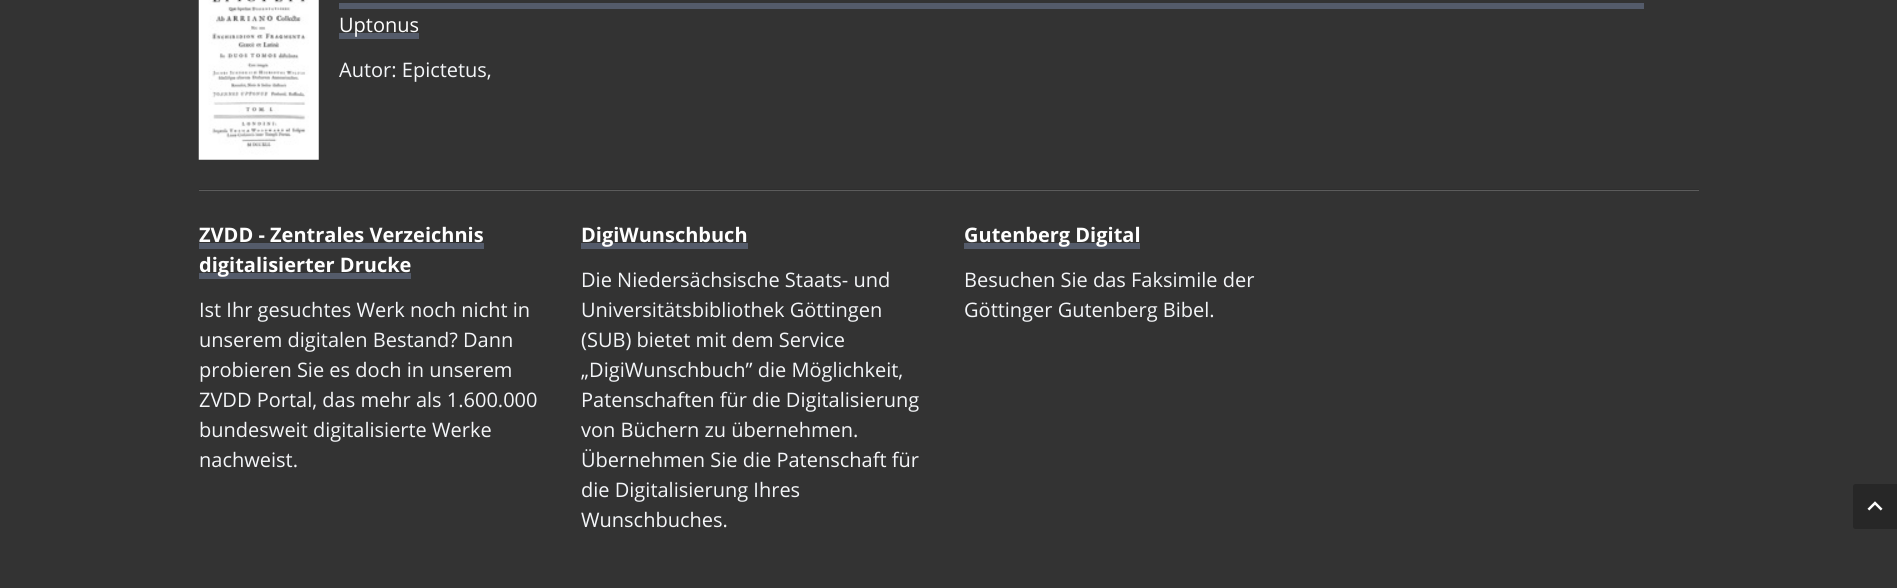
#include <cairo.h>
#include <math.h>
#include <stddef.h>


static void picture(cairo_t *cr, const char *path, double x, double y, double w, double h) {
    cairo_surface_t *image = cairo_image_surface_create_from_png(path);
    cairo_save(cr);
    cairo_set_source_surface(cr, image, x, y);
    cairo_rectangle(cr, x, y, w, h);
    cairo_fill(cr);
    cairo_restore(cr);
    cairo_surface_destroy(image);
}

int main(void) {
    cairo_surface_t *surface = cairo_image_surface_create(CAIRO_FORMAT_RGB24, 1897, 588);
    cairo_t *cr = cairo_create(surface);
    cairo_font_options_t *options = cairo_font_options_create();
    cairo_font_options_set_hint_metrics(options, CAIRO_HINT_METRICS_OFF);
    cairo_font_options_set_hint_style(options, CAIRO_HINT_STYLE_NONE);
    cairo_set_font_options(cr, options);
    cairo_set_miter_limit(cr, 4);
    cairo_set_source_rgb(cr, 0.2, 0.2, 0.2);
    cairo_paint(cr);
    cairo_set_source_rgb(cr, 0.361, 0.361, 0.361);
    cairo_new_path(cr);
    cairo_move_to(cr, 199, 190);
    cairo_line_to(cr, 199, 191);
    cairo_line_to(cr, 1699, 191);
    cairo_line_to(cr, 1699, -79);
    cairo_line_to(cr, 1699, 190);
    cairo_close_path(cr);
    cairo_fill(cr);
    cairo_set_source_rgb(cr, 0.18, 0.18, 0.18);
    cairo_rectangle(cr, 199, 189, 1500, 1);
    cairo_fill(cr);
    picture(cr, "img1.png", 198, 0, 121, 160);
    cairo_set_source_rgb(cr, 0.329, 0.357, 0.416);
    cairo_rectangle(cr, 339, 33, 80, 6);
    cairo_fill(cr);
    cairo_select_font_face(cr, "Open Sans", CAIRO_FONT_SLANT_NORMAL, CAIRO_FONT_WEIGHT_NORMAL);
    cairo_set_font_size(cr, 20);
    cairo_set_source_rgb(cr, 1, 1, 1);
    cairo_move_to(cr, 339, 32);
    cairo_show_text(cr, "Uptonus");
    cairo_set_source_rgb(cr, 0.329, 0.357, 0.416);
    cairo_rectangle(cr, 339, 3, 1305, 6);
    cairo_fill(cr);
    cairo_set_source_rgb(cr, 0.957, 0.961, 0.973);
    cairo_move_to(cr, 339, 77);
    cairo_show_text(cr, "Autor: Epictetus,");
    cairo_select_font_face(cr, "Open Sans", CAIRO_FONT_SLANT_NORMAL, CAIRO_FONT_WEIGHT_BOLD);
    cairo_set_source_rgb(cr, 1, 1, 1);
    cairo_move_to(cr, 199, 242);
    cairo_show_text(cr, "ZVDD - Zentrales Verzeichnis");
    cairo_set_source_rgb(cr, 0.329, 0.357, 0.416);
    cairo_rectangle(cr, 199, 243, 285, 6);
    cairo_fill(cr);
    cairo_rectangle(cr, 199, 273, 212, 6);
    cairo_fill(cr);
    cairo_set_source_rgb(cr, 1, 1, 1);
    cairo_move_to(cr, 199, 272);
    cairo_show_text(cr, "digitalisierter Drucke");
    cairo_select_font_face(cr, "Open Sans", CAIRO_FONT_SLANT_NORMAL, CAIRO_FONT_WEIGHT_NORMAL);
    cairo_set_source_rgb(cr, 0.957, 0.961, 0.973);
    cairo_move_to(cr, 199, 317);
    cairo_show_text(cr, "Ist Ihr gesuchtes Werk noch nicht in");
    cairo_move_to(cr, 199, 347);
    cairo_show_text(cr, "unserem digitalen Bestand? Dann");
    cairo_move_to(cr, 199, 377);
    cairo_show_text(cr, "probieren Sie es doch in unserem");
    cairo_move_to(cr, 199, 407);
    cairo_show_text(cr, "ZVDD Portal, das mehr als 1.600.000");
    cairo_move_to(cr, 199, 437);
    cairo_show_text(cr, "bundesweit digitalisierte Werke");
    cairo_move_to(cr, 199, 467);
    cairo_show_text(cr, "nachweist.");
    cairo_set_source_rgb(cr, 0.329, 0.357, 0.416);
    cairo_rectangle(cr, 581, 243, 167, 6);
    cairo_fill(cr);
    cairo_select_font_face(cr, "Open Sans", CAIRO_FONT_SLANT_NORMAL, CAIRO_FONT_WEIGHT_BOLD);
    cairo_set_source_rgb(cr, 1, 1, 1);
    cairo_move_to(cr, 581, 242);
    cairo_show_text(cr, "DigiWunschbuch");
    cairo_select_font_face(cr, "Open Sans", CAIRO_FONT_SLANT_NORMAL, CAIRO_FONT_WEIGHT_NORMAL);
    cairo_set_source_rgb(cr, 0.957, 0.961, 0.973);
    cairo_move_to(cr, 581, 287);
    cairo_show_text(cr, "Die Niedersächsische Staats- und");
    cairo_move_to(cr, 581, 317);
    cairo_show_text(cr, "Universitätsbibliothek Göttingen");
    cairo_move_to(cr, 581, 347);
    cairo_show_text(cr, "(SUB) bietet mit dem Service");
    cairo_move_to(cr, 581, 377);
    cairo_show_text(cr, "„DigiWunschbuch” die Möglichkeit,");
    cairo_move_to(cr, 581, 407);
    cairo_show_text(cr, "Patenschaften für die Digitalisierung");
    cairo_move_to(cr, 581, 437);
    cairo_show_text(cr, "von Büchern zu übernehmen.");
    cairo_move_to(cr, 581, 467);
    cairo_show_text(cr, "Übernehmen Sie die Patenschaft für");
    cairo_move_to(cr, 581, 497);
    cairo_show_text(cr, "die Digitalisierung Ihres");
    cairo_move_to(cr, 581, 527);
    cairo_show_text(cr, "Wunschbuches.");
    cairo_set_source_rgb(cr, 0.329, 0.357, 0.416);
    cairo_rectangle(cr, 964, 243, 176, 6);
    cairo_fill(cr);
    cairo_select_font_face(cr, "Open Sans", CAIRO_FONT_SLANT_NORMAL, CAIRO_FONT_WEIGHT_BOLD);
    cairo_set_source_rgb(cr, 1, 1, 1);
    cairo_move_to(cr, 964, 242);
    cairo_show_text(cr, "Gutenberg Digital");
    cairo_select_font_face(cr, "Open Sans", CAIRO_FONT_SLANT_NORMAL, CAIRO_FONT_WEIGHT_NORMAL);
    cairo_set_source_rgb(cr, 0.957, 0.961, 0.973);
    cairo_move_to(cr, 964, 287);
    cairo_show_text(cr, "Besuchen Sie das Faksimile der");
    cairo_move_to(cr, 964, 317);
    cairo_show_text(cr, "Göttinger Gutenberg Bibel.");
    cairo_set_source_rgb(cr, 0.153, 0.153, 0.153);
    cairo_new_path(cr);
    cairo_move_to(cr, 1855.5, 484);
    cairo_line_to(cr, 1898, 484);
    cairo_line_to(cr, 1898, 529);
    cairo_line_to(cr, 1855.5, 529);
    cairo_curve_to(cr, 1854, 529, 1853, 528, 1853, 526.5);
    cairo_line_to(cr, 1853, 486.5);
    cairo_curve_to(cr, 1853, 485, 1854, 484, 1855.5, 484);
    cairo_close_path(cr);
    cairo_fill(cr);
    picture(cr, "img2.png", 1867, 501, 16, 10);
    cairo_surface_write_to_png(surface, "page.png");
    cairo_font_options_destroy(options);
    cairo_destroy(cr);
    cairo_surface_destroy(surface);
    return 0;
}
